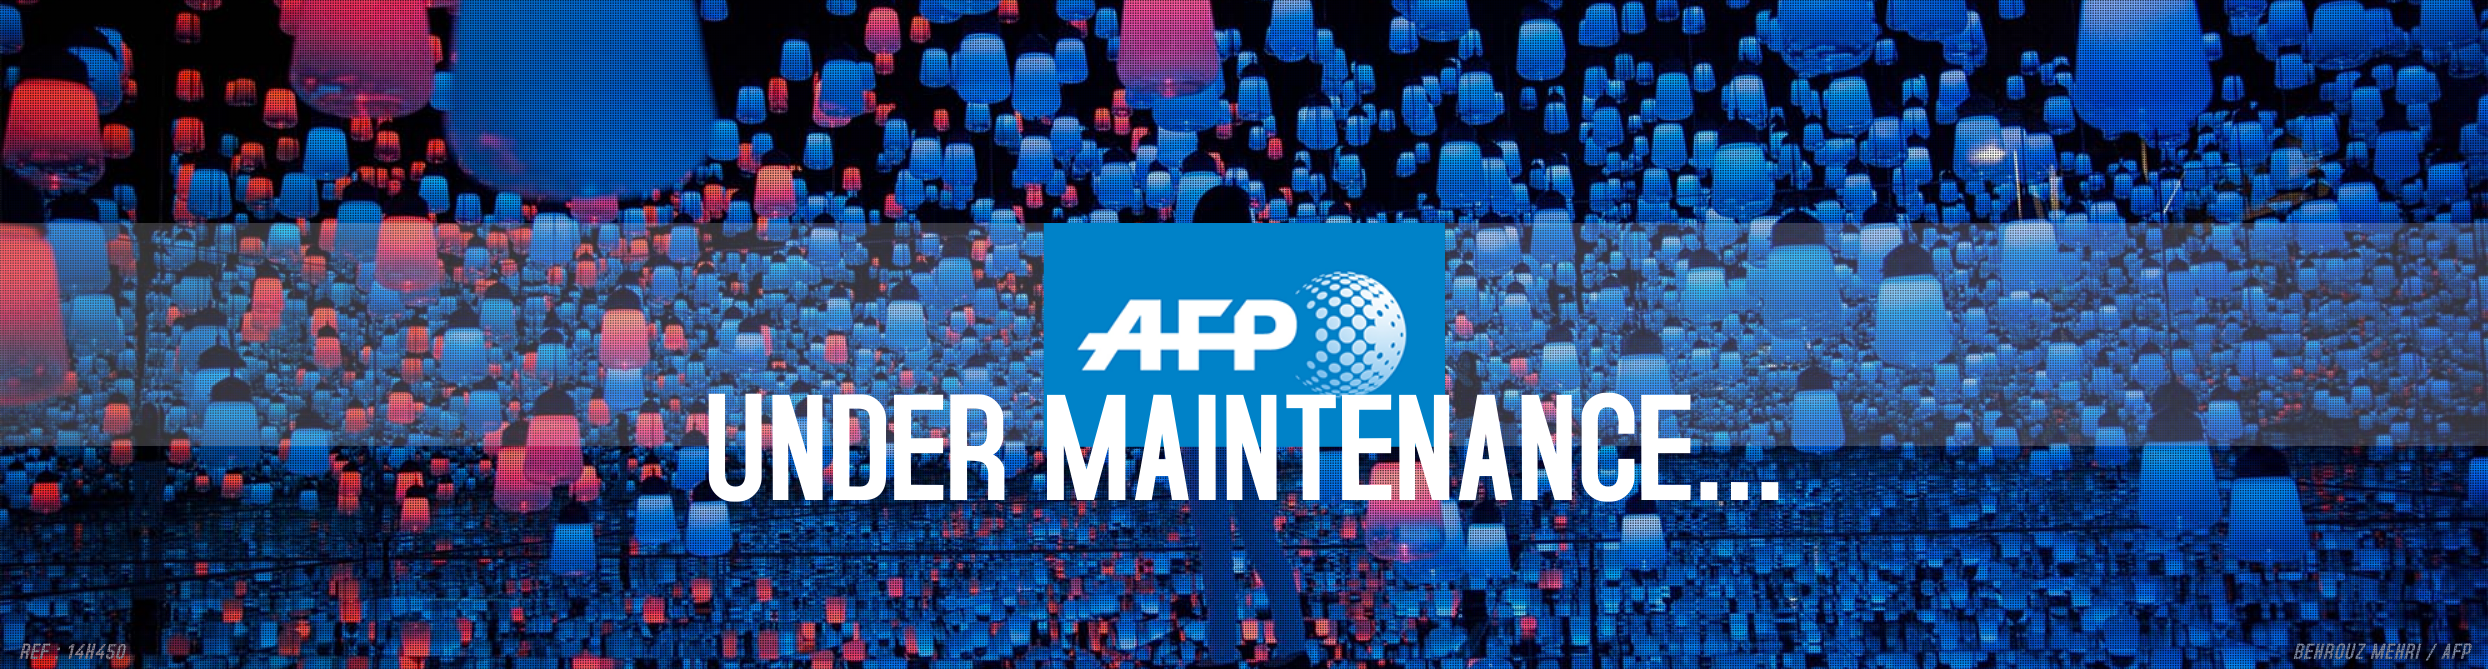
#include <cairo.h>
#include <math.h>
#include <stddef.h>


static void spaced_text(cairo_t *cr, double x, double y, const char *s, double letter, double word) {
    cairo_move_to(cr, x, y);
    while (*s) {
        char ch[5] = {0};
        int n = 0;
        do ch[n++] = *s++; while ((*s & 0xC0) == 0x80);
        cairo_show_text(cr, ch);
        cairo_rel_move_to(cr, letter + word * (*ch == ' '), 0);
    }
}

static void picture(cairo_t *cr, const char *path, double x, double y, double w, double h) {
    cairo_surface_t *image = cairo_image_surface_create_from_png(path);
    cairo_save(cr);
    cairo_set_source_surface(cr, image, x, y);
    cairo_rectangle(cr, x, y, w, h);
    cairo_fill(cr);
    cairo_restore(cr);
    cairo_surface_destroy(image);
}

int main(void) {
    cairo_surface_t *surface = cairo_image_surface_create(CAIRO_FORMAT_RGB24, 2488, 669);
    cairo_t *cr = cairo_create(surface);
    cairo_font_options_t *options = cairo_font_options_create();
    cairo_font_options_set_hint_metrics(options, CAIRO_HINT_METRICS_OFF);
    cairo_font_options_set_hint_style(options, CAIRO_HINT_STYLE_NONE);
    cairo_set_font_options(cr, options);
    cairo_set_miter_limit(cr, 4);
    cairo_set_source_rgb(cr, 1, 1, 1);
    cairo_paint(cr);
    picture(cr, "img3.png", 0, 0, 2488, 669);
    cairo_select_font_face(cr, "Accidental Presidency", CAIRO_FONT_SLANT_ITALIC, CAIRO_FONT_WEIGHT_NORMAL);
    cairo_set_font_size(cr, 23.75);
    cairo_set_source_rgb(cr, 0.588, 0.557, 0.62);
    spaced_text(cr, 19, 659, "REF : 14H450", 1.25, 0);
    cairo_set_source_rgb(cr, 0.51, 0.561, 0.682);
    spaced_text(cr, 2293, 659, "BEHROUZ MEHRI / AFP", 1.25, 0);
    picture(cr, "img2.png", 0, 0, 2488, 669);
    cairo_set_source_rgba(cr, 1, 1, 1, 0.2);
    cairo_rectangle(cr, 0, 223, 2488, 223);
    cairo_fill(cr);
    picture(cr, "img1.png", 1043, 223, 402, 224);
    cairo_select_font_face(cr, "Accidental Presidency", CAIRO_FONT_SLANT_NORMAL, CAIRO_FONT_WEIGHT_NORMAL);
    cairo_set_font_size(cr, 162);
    cairo_set_source_rgb(cr, 1, 1, 1);
    cairo_move_to(cr, 704, 500);
    cairo_show_text(cr, "UNDER MAINTENANCE...");
    cairo_surface_write_to_png(surface, "page.png");
    cairo_font_options_destroy(options);
    cairo_destroy(cr);
    cairo_surface_destroy(surface);
    return 0;
}
